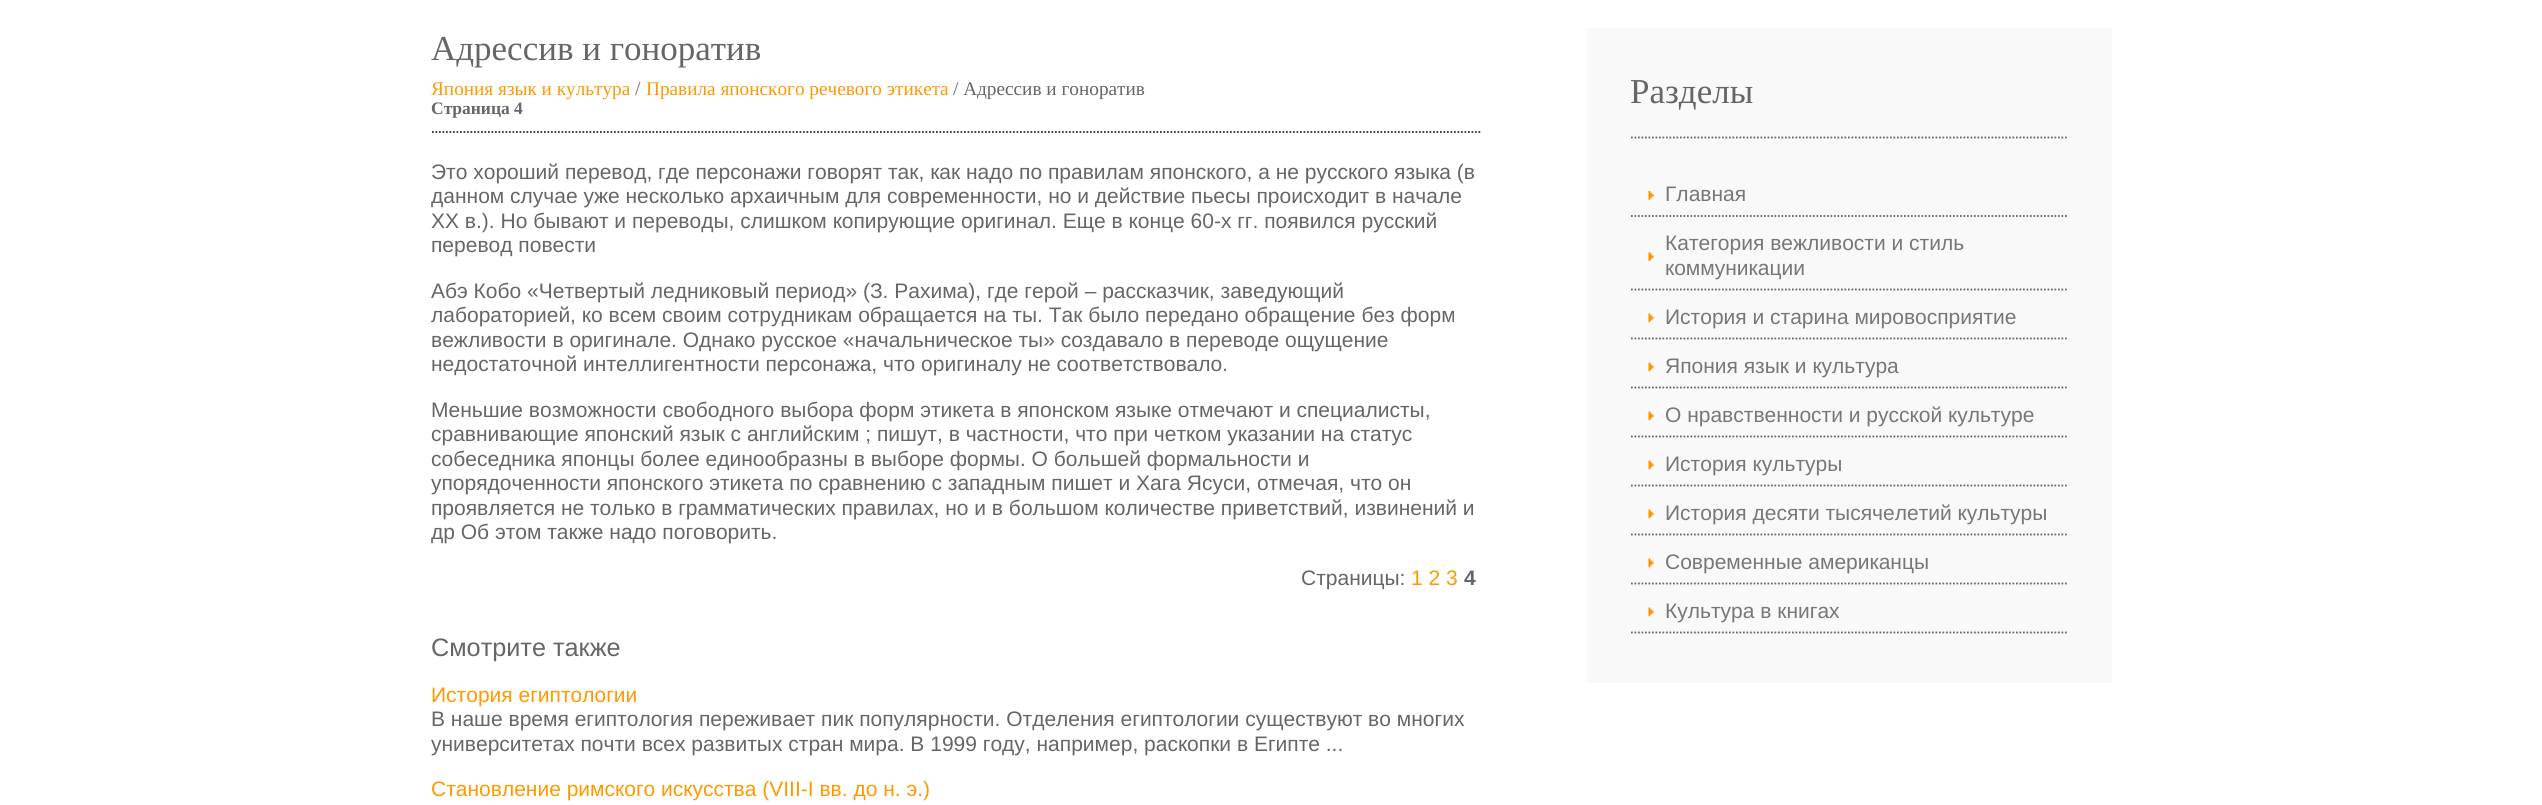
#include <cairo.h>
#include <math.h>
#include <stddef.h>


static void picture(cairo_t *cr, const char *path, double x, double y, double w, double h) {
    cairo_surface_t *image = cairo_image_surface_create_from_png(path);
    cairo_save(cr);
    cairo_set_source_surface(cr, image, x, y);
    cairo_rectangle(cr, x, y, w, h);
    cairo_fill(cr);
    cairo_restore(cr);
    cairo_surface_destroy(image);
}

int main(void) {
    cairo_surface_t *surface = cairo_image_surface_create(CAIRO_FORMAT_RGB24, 2542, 805);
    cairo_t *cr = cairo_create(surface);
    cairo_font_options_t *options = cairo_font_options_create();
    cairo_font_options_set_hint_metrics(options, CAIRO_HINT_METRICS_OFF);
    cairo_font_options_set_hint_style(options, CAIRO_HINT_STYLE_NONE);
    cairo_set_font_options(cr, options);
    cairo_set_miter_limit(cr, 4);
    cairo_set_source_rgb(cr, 1, 1, 1);
    cairo_paint(cr);
    cairo_new_path(cr);
    cairo_move_to(cr, 432, 132);
    cairo_line_to(cr, 1482, 132);
    cairo_set_source_rgb(cr, 0.212, 0.173, 0.125);
    cairo_set_line_width(cr, 1.8);
    cairo_set_dash(cr, (double[]){1.75, 1.75}, 2, 0);
    cairo_stroke(cr);
    cairo_select_font_face(cr, "Liberation Serif", CAIRO_FONT_SLANT_NORMAL, CAIRO_FONT_WEIGHT_NORMAL);
    cairo_set_font_size(cr, 35);
    cairo_set_source_rgb(cr, 0.4, 0.4, 0.4);
    cairo_move_to(cr, 431, 60);
    cairo_show_text(cr, "Адрессив и гоноратив");
    cairo_set_font_size(cr, 19.25);
    cairo_set_source_rgb(cr, 1, 0.6, 0);
    cairo_move_to(cr, 431, 95);
    cairo_show_text(cr, "Япония язык и культура");
    cairo_set_source_rgb(cr, 0.4, 0.4, 0.4);
    cairo_move_to(cr, 635, 95);
    cairo_show_text(cr, "/");
    cairo_set_source_rgb(cr, 1, 0.6, 0);
    cairo_move_to(cr, 646, 95);
    cairo_show_text(cr, "Правила японского речевого этикета");
    cairo_set_source_rgb(cr, 0.4, 0.4, 0.4);
    cairo_move_to(cr, 953, 95);
    cairo_show_text(cr, "/ Адрессив и гоноратив");
    cairo_select_font_face(cr, "Liberation Serif", CAIRO_FONT_SLANT_NORMAL, CAIRO_FONT_WEIGHT_BOLD);
    cairo_set_font_size(cr, 17.5);
    cairo_move_to(cr, 431, 114);
    cairo_show_text(cr, "Страница 4");
    cairo_select_font_face(cr, "Liberation Sans", CAIRO_FONT_SLANT_NORMAL, CAIRO_FONT_WEIGHT_NORMAL);
    cairo_set_font_size(cr, 21);
    cairo_move_to(cr, 431, 179);
    cairo_show_text(cr, "Это хороший перевод, где персонажи говорят так, как надо по правилам японского, а не русского языка (в");
    cairo_move_to(cr, 431, 203);
    cairo_show_text(cr, "данном случае уже несколько архаичным для современности, но и действие пьесы происходит в начале");
    cairo_move_to(cr, 431, 228);
    cairo_show_text(cr, "XX в.). Но бывают и переводы, слишком копирующие оригинал. Еще в конце 60-х гг. появился русский");
    cairo_move_to(cr, 431, 252);
    cairo_show_text(cr, "перевод повести");
    cairo_move_to(cr, 431, 298);
    cairo_show_text(cr, "Абэ Кобо «Четвертый ледниковый период» (З. Рахима), где герой – рассказчик, заведующий");
    cairo_move_to(cr, 431, 322);
    cairo_show_text(cr, "лабораторией, ко всем своим сотрудникам обращается на ты. Так было передано обращение без форм");
    cairo_move_to(cr, 431, 347);
    cairo_show_text(cr, "вежливости в оригинале. Однако русское «начальническое ты» создавало в переводе ощущение");
    cairo_move_to(cr, 431, 371);
    cairo_show_text(cr, "недостаточной интеллигентности персонажа, что оригиналу не соответствовало.");
    cairo_move_to(cr, 431, 417);
    cairo_show_text(cr, "Меньшие возможности свободного выбора форм этикета в японском языке отмечают и специалисты,");
    cairo_move_to(cr, 431, 441);
    cairo_show_text(cr, "сравнивающие японский язык с английским ; пишут, в частности, что при четком указании на статус");
    cairo_move_to(cr, 431, 466);
    cairo_show_text(cr, "собеседника японцы более единообразны в выборе формы. О большей формальности и");
    cairo_move_to(cr, 431, 490);
    cairo_show_text(cr, "упорядоченности японского этикета по сравнению с западным пишет и Хага Ясуси, отмечая, что он");
    cairo_move_to(cr, 431, 515);
    cairo_show_text(cr, "проявляется не только в грамматических правилах, но и в большом количестве приветствий, извинений и");
    cairo_move_to(cr, 431, 539);
    cairo_show_text(cr, "др Об этом также надо поговорить.");
    cairo_move_to(cr, 1301, 585);
    cairo_show_text(cr, "Страницы:");
    cairo_set_source_rgb(cr, 1, 0.6, 0);
    cairo_move_to(cr, 1411, 585);
    cairo_show_text(cr, "1 2 3");
    cairo_select_font_face(cr, "Liberation Sans", CAIRO_FONT_SLANT_NORMAL, CAIRO_FONT_WEIGHT_BOLD);
    cairo_set_source_rgb(cr, 0.4, 0.4, 0.4);
    cairo_move_to(cr, 1464, 585);
    cairo_show_text(cr, "4");
    cairo_select_font_face(cr, "Liberation Sans", CAIRO_FONT_SLANT_NORMAL, CAIRO_FONT_WEIGHT_NORMAL);
    cairo_set_font_size(cr, 25.25);
    cairo_move_to(cr, 431, 656);
    cairo_show_text(cr, "Смотрите также");
    cairo_set_font_size(cr, 21);
    cairo_set_source_rgb(cr, 1, 0.6, 0);
    cairo_move_to(cr, 431, 702);
    cairo_show_text(cr, "История египтологии");
    cairo_set_source_rgb(cr, 0.4, 0.4, 0.4);
    cairo_move_to(cr, 431, 726);
    cairo_show_text(cr, "В наше время египтология переживает пик популярности. Отделения египтологии существуют во многих");
    cairo_move_to(cr, 431, 751);
    cairo_show_text(cr, "университетах почти всех развитых стран мира. В 1999 году, например, раскопки в Египте ...");
    cairo_set_source_rgb(cr, 1, 0.6, 0);
    cairo_move_to(cr, 431, 796);
    cairo_show_text(cr, "Становление римского искусства (VIII-I вв. до н. э.)");
    cairo_set_source_rgb(cr, 0.976, 0.976, 0.976);
    cairo_rectangle(cr, 1587, 28, 525, 655);
    cairo_fill(cr);
    cairo_new_path(cr);
    cairo_move_to(cr, 1631, 137.5);
    cairo_line_to(cr, 2068.5, 137.5);
    cairo_set_source_rgb(cr, 0.4, 0.4, 0.4);
    cairo_stroke(cr);
    cairo_select_font_face(cr, "Liberation Serif", CAIRO_FONT_SLANT_NORMAL, CAIRO_FONT_WEIGHT_NORMAL);
    cairo_set_font_size(cr, 35);
    cairo_move_to(cr, 1630, 103);
    cairo_show_text(cr, "Разделы");
    picture(cr, "img1.png", 1648, 191, 6, 9);
    cairo_new_path(cr);
    cairo_move_to(cr, 1631, 216);
    cairo_line_to(cr, 2068.5, 216);
    cairo_stroke(cr);
    cairo_select_font_face(cr, "Liberation Sans", CAIRO_FONT_SLANT_NORMAL, CAIRO_FONT_WEIGHT_NORMAL);
    cairo_set_font_size(cr, 21);
    cairo_set_source_rgb(cr, 0.467, 0.467, 0.467);
    cairo_move_to(cr, 1665, 201);
    cairo_show_text(cr, "Главная");
    picture(cr, "img2.png", 1648, 252, 6, 9);
    cairo_new_path(cr);
    cairo_move_to(cr, 1631, 289.5);
    cairo_line_to(cr, 2068.5, 289.5);
    cairo_set_source_rgb(cr, 0.4, 0.4, 0.4);
    cairo_stroke(cr);
    cairo_set_source_rgb(cr, 0.467, 0.467, 0.467);
    cairo_move_to(cr, 1665, 250);
    cairo_show_text(cr, "Категория вежливости и стиль");
    cairo_move_to(cr, 1665, 275);
    cairo_show_text(cr, "коммуникации");
    picture(cr, "img3.png", 1648, 313, 6, 10);
    cairo_new_path(cr);
    cairo_move_to(cr, 1631, 338.5);
    cairo_line_to(cr, 2068.5, 338.5);
    cairo_set_source_rgb(cr, 0.4, 0.4, 0.4);
    cairo_stroke(cr);
    cairo_set_source_rgb(cr, 0.467, 0.467, 0.467);
    cairo_move_to(cr, 1665, 324);
    cairo_show_text(cr, "История и старина мировосприятие");
    picture(cr, "img3.png", 1648, 362, 6, 10);
    cairo_new_path(cr);
    cairo_move_to(cr, 1631, 387.5);
    cairo_line_to(cr, 2068.5, 387.5);
    cairo_set_source_rgb(cr, 0.4, 0.4, 0.4);
    cairo_stroke(cr);
    cairo_set_source_rgb(cr, 0.467, 0.467, 0.467);
    cairo_move_to(cr, 1665, 373);
    cairo_show_text(cr, "Япония язык и культура");
    picture(cr, "img3.png", 1648, 411, 6, 10);
    cairo_new_path(cr);
    cairo_move_to(cr, 1631, 436.5);
    cairo_line_to(cr, 2068.5, 436.5);
    cairo_set_source_rgb(cr, 0.4, 0.4, 0.4);
    cairo_stroke(cr);
    cairo_set_source_rgb(cr, 0.467, 0.467, 0.467);
    cairo_move_to(cr, 1665, 422);
    cairo_show_text(cr, "О нравственности и русской культуре");
    picture(cr, "img3.png", 1648, 460, 6, 10);
    cairo_new_path(cr);
    cairo_move_to(cr, 1631, 485.5);
    cairo_line_to(cr, 2068.5, 485.5);
    cairo_set_source_rgb(cr, 0.4, 0.4, 0.4);
    cairo_stroke(cr);
    cairo_set_source_rgb(cr, 0.467, 0.467, 0.467);
    cairo_move_to(cr, 1665, 471);
    cairo_show_text(cr, "История культуры");
    picture(cr, "img3.png", 1648, 509, 6, 10);
    cairo_new_path(cr);
    cairo_move_to(cr, 1631, 534.5);
    cairo_line_to(cr, 2068.5, 534.5);
    cairo_set_source_rgb(cr, 0.4, 0.4, 0.4);
    cairo_stroke(cr);
    cairo_set_source_rgb(cr, 0.467, 0.467, 0.467);
    cairo_move_to(cr, 1665, 520);
    cairo_show_text(cr, "История десяти тысячелетий культуры");
    picture(cr, "img3.png", 1648, 558, 6, 10);
    cairo_new_path(cr);
    cairo_move_to(cr, 1631, 583.5);
    cairo_line_to(cr, 2068.5, 583.5);
    cairo_set_source_rgb(cr, 0.4, 0.4, 0.4);
    cairo_stroke(cr);
    cairo_set_source_rgb(cr, 0.467, 0.467, 0.467);
    cairo_move_to(cr, 1665, 569);
    cairo_show_text(cr, "Современные американцы");
    picture(cr, "img3.png", 1648, 607, 6, 10);
    cairo_new_path(cr);
    cairo_move_to(cr, 1631, 632.5);
    cairo_line_to(cr, 2068.5, 632.5);
    cairo_set_source_rgb(cr, 0.4, 0.4, 0.4);
    cairo_stroke(cr);
    cairo_set_source_rgb(cr, 0.467, 0.467, 0.467);
    cairo_move_to(cr, 1665, 618);
    cairo_show_text(cr, "Культура в книгах");
    cairo_surface_write_to_png(surface, "page.png");
    cairo_font_options_destroy(options);
    cairo_destroy(cr);
    cairo_surface_destroy(surface);
    return 0;
}
